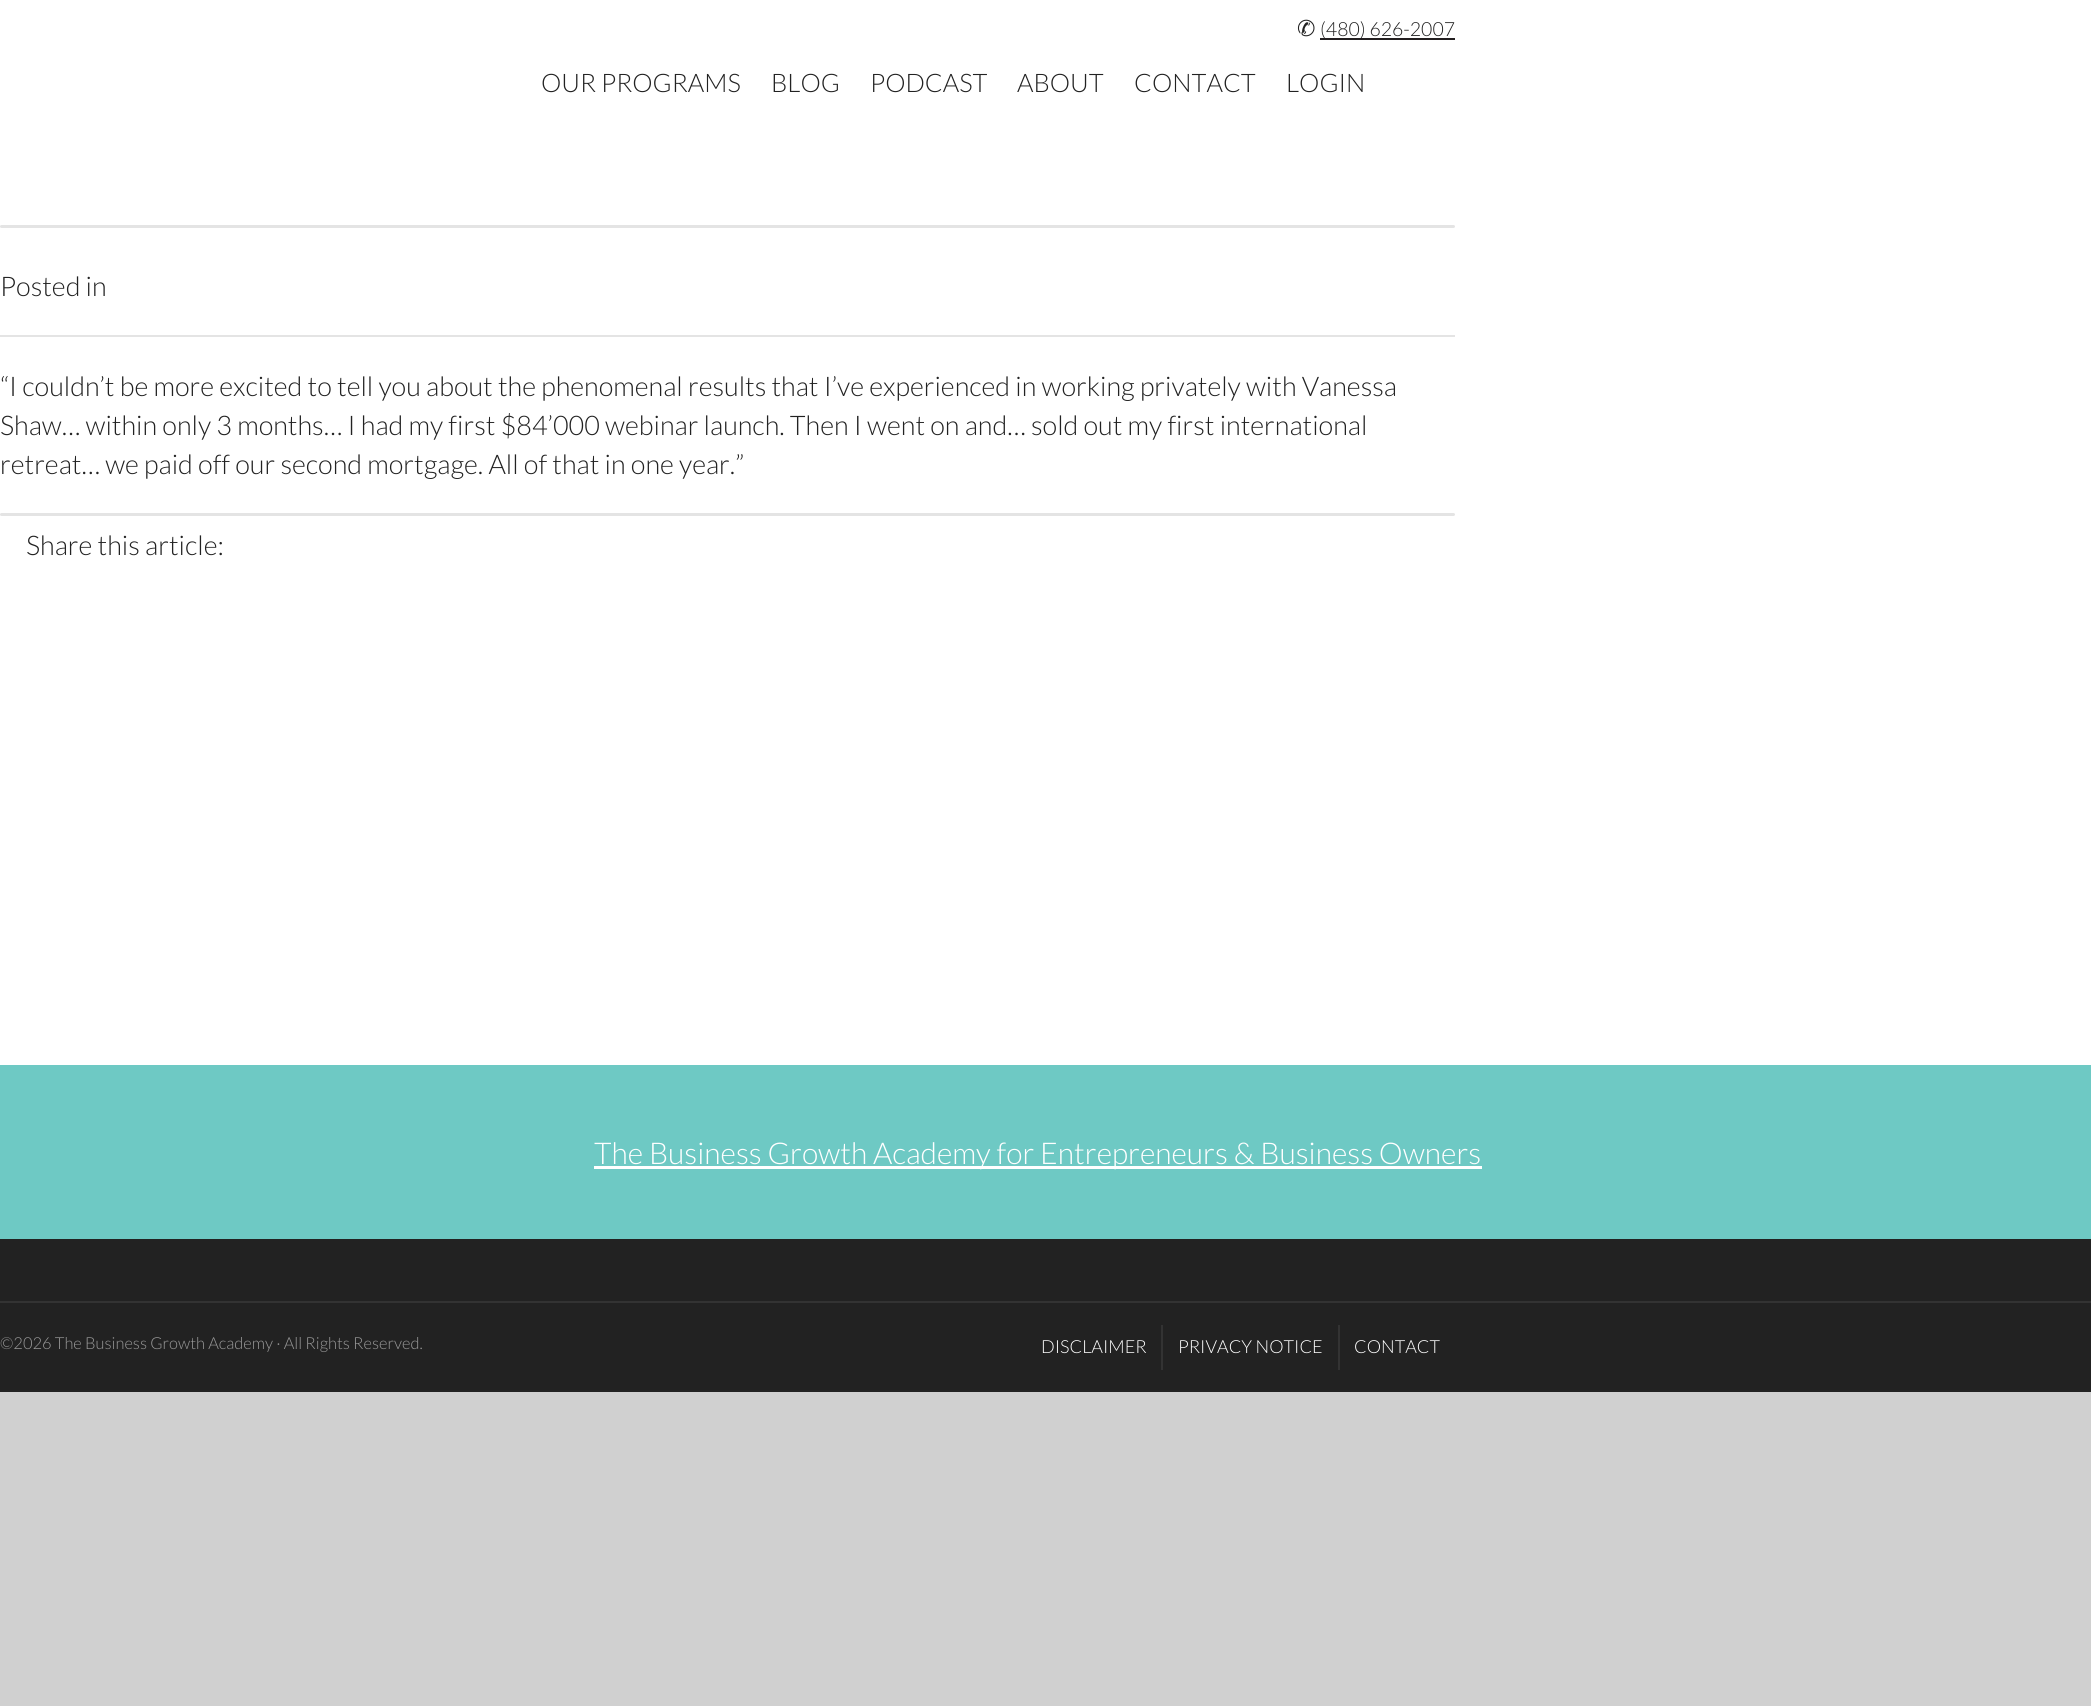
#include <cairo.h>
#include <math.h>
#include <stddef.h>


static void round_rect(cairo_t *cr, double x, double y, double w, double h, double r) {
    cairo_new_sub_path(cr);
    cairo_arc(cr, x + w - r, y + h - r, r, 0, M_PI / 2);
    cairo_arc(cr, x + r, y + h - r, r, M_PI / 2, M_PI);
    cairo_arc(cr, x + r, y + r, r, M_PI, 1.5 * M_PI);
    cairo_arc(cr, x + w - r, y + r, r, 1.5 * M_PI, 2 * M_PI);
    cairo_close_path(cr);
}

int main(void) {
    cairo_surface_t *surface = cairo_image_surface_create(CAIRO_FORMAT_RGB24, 2091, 1706);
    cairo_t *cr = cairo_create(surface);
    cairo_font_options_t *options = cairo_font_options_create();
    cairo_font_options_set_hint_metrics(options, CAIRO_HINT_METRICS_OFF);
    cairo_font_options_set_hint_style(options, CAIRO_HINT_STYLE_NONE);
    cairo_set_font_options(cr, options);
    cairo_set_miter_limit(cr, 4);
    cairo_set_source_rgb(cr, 0.816, 0.816, 0.816);
    cairo_paint(cr);
    cairo_set_source_rgb(cr, 1, 1, 1);
    cairo_rectangle(cr, 0, 0, 2091, 1065);
    cairo_fill(cr);
    cairo_select_font_face(cr, "DejaVu Sans", CAIRO_FONT_SLANT_NORMAL, CAIRO_FONT_WEIGHT_NORMAL);
    cairo_set_font_size(cr, 22);
    cairo_set_source_rgb(cr, 0.133, 0.133, 0.133);
    cairo_move_to(cr, 1297, 36);
    cairo_show_text(cr, "✆");
    cairo_set_source_rgb(cr, 0.137, 0.122, 0.125);
    cairo_rectangle(cr, 1320, 38, 135, 2);
    cairo_fill(cr);
    cairo_select_font_face(cr, "Lato Light", CAIRO_FONT_SLANT_NORMAL, CAIRO_FONT_WEIGHT_NORMAL);
    cairo_set_font_size(cr, 19.5);
    cairo_set_source_rgb(cr, 0.133, 0.133, 0.133);
    cairo_move_to(cr, 1320, 36);
    cairo_show_text(cr, "(480) 626-2007");
    cairo_set_font_size(cr, 25.5);
    cairo_move_to(cr, 541, 92);
    cairo_show_text(cr, "OUR PROGRAMS");
    cairo_move_to(cr, 771, 92);
    cairo_show_text(cr, "BLOG");
    cairo_move_to(cr, 870, 92);
    cairo_show_text(cr, "PODCAST");
    cairo_move_to(cr, 1017, 92);
    cairo_show_text(cr, "ABOUT");
    cairo_move_to(cr, 1134, 92);
    cairo_show_text(cr, "CONTACT");
    cairo_move_to(cr, 1286, 92);
    cairo_show_text(cr, "LOGIN");
    cairo_set_source_rgb(cr, 0.894, 0.894, 0.894);
    round_rect(cr, 0, 225, 1455, 3, 1.5);
    cairo_fill(cr);
    cairo_rectangle(cr, 0, 335, 1455, 2);
    cairo_fill(cr);
    cairo_set_font_size(cr, 27);
    cairo_set_source_rgb(cr, 0.133, 0.133, 0.133);
    cairo_move_to(cr, 0, 296);
    cairo_show_text(cr, "Posted in");
    cairo_move_to(cr, 0, 396);
    cairo_show_text(cr, "“I couldn’t be more excited to tell you about the phenomenal results that I’ve experienced in working privately with Vanessa");
    cairo_move_to(cr, 0, 435);
    cairo_show_text(cr, "Shaw… within only 3 months… I had my first $84’000 webinar launch. Then I went on and… sold out my first international");
    cairo_move_to(cr, 0, 474);
    cairo_show_text(cr, "retreat… we paid off our second mortgage. All of that in one year.”");
    cairo_set_source_rgb(cr, 0.894, 0.894, 0.894);
    round_rect(cr, 0, 513, 1455, 3, 1.5);
    cairo_fill(cr);
    cairo_set_source_rgb(cr, 0.133, 0.133, 0.133);
    cairo_move_to(cr, 26, 555);
    cairo_show_text(cr, "Share this article:");
    cairo_set_source_rgb(cr, 0.431, 0.788, 0.769);
    cairo_rectangle(cr, 0, 1065, 2091, 174);
    cairo_fill(cr);
    cairo_set_source_rgb(cr, 1, 1, 1);
    cairo_rectangle(cr, 594, 1166, 888, 3);
    cairo_fill(cr);
    cairo_set_font_size(cr, 30);
    cairo_move_to(cr, 594, 1164);
    cairo_show_text(cr, "The Business Growth Academy for Entrepreneurs & Business Owners");
    cairo_set_source_rgb(cr, 0.133, 0.133, 0.133);
    cairo_rectangle(cr, 0, 1239, 2091, 62);
    cairo_fill(cr);
    cairo_rectangle(cr, 0, 1303, 2091, 89);
    cairo_fill(cr);
    cairo_set_source_rgb(cr, 0.2, 0.2, 0.2);
    cairo_rectangle(cr, 0, 1301, 2091, 2);
    cairo_fill(cr);
    cairo_set_font_size(cr, 16.5);
    cairo_set_source_rgb(cr, 0.6, 0.6, 0.6);
    cairo_move_to(cr, 0, 1349);
    cairo_show_text(cr, "©2026 The Business Growth Academy · All Rights Reserved.");
    cairo_set_font_size(cr, 18);
    cairo_set_source_rgb(cr, 1, 1, 1);
    cairo_move_to(cr, 1041, 1353);
    cairo_show_text(cr, "DISCLAIMER");
    cairo_set_source_rgb(cr, 0.2, 0.2, 0.2);
    cairo_rectangle(cr, 1161, 1325, 2, 45);
    cairo_fill(cr);
    cairo_set_source_rgb(cr, 1, 1, 1);
    cairo_move_to(cr, 1178, 1353);
    cairo_show_text(cr, "PRIVACY NOTICE");
    cairo_set_source_rgb(cr, 0.2, 0.2, 0.2);
    cairo_rectangle(cr, 1338, 1325, 2, 45);
    cairo_fill(cr);
    cairo_set_source_rgb(cr, 1, 1, 1);
    cairo_move_to(cr, 1354, 1353);
    cairo_show_text(cr, "CONTACT");
    cairo_surface_write_to_png(surface, "page.png");
    cairo_font_options_destroy(options);
    cairo_destroy(cr);
    cairo_surface_destroy(surface);
    return 0;
}
